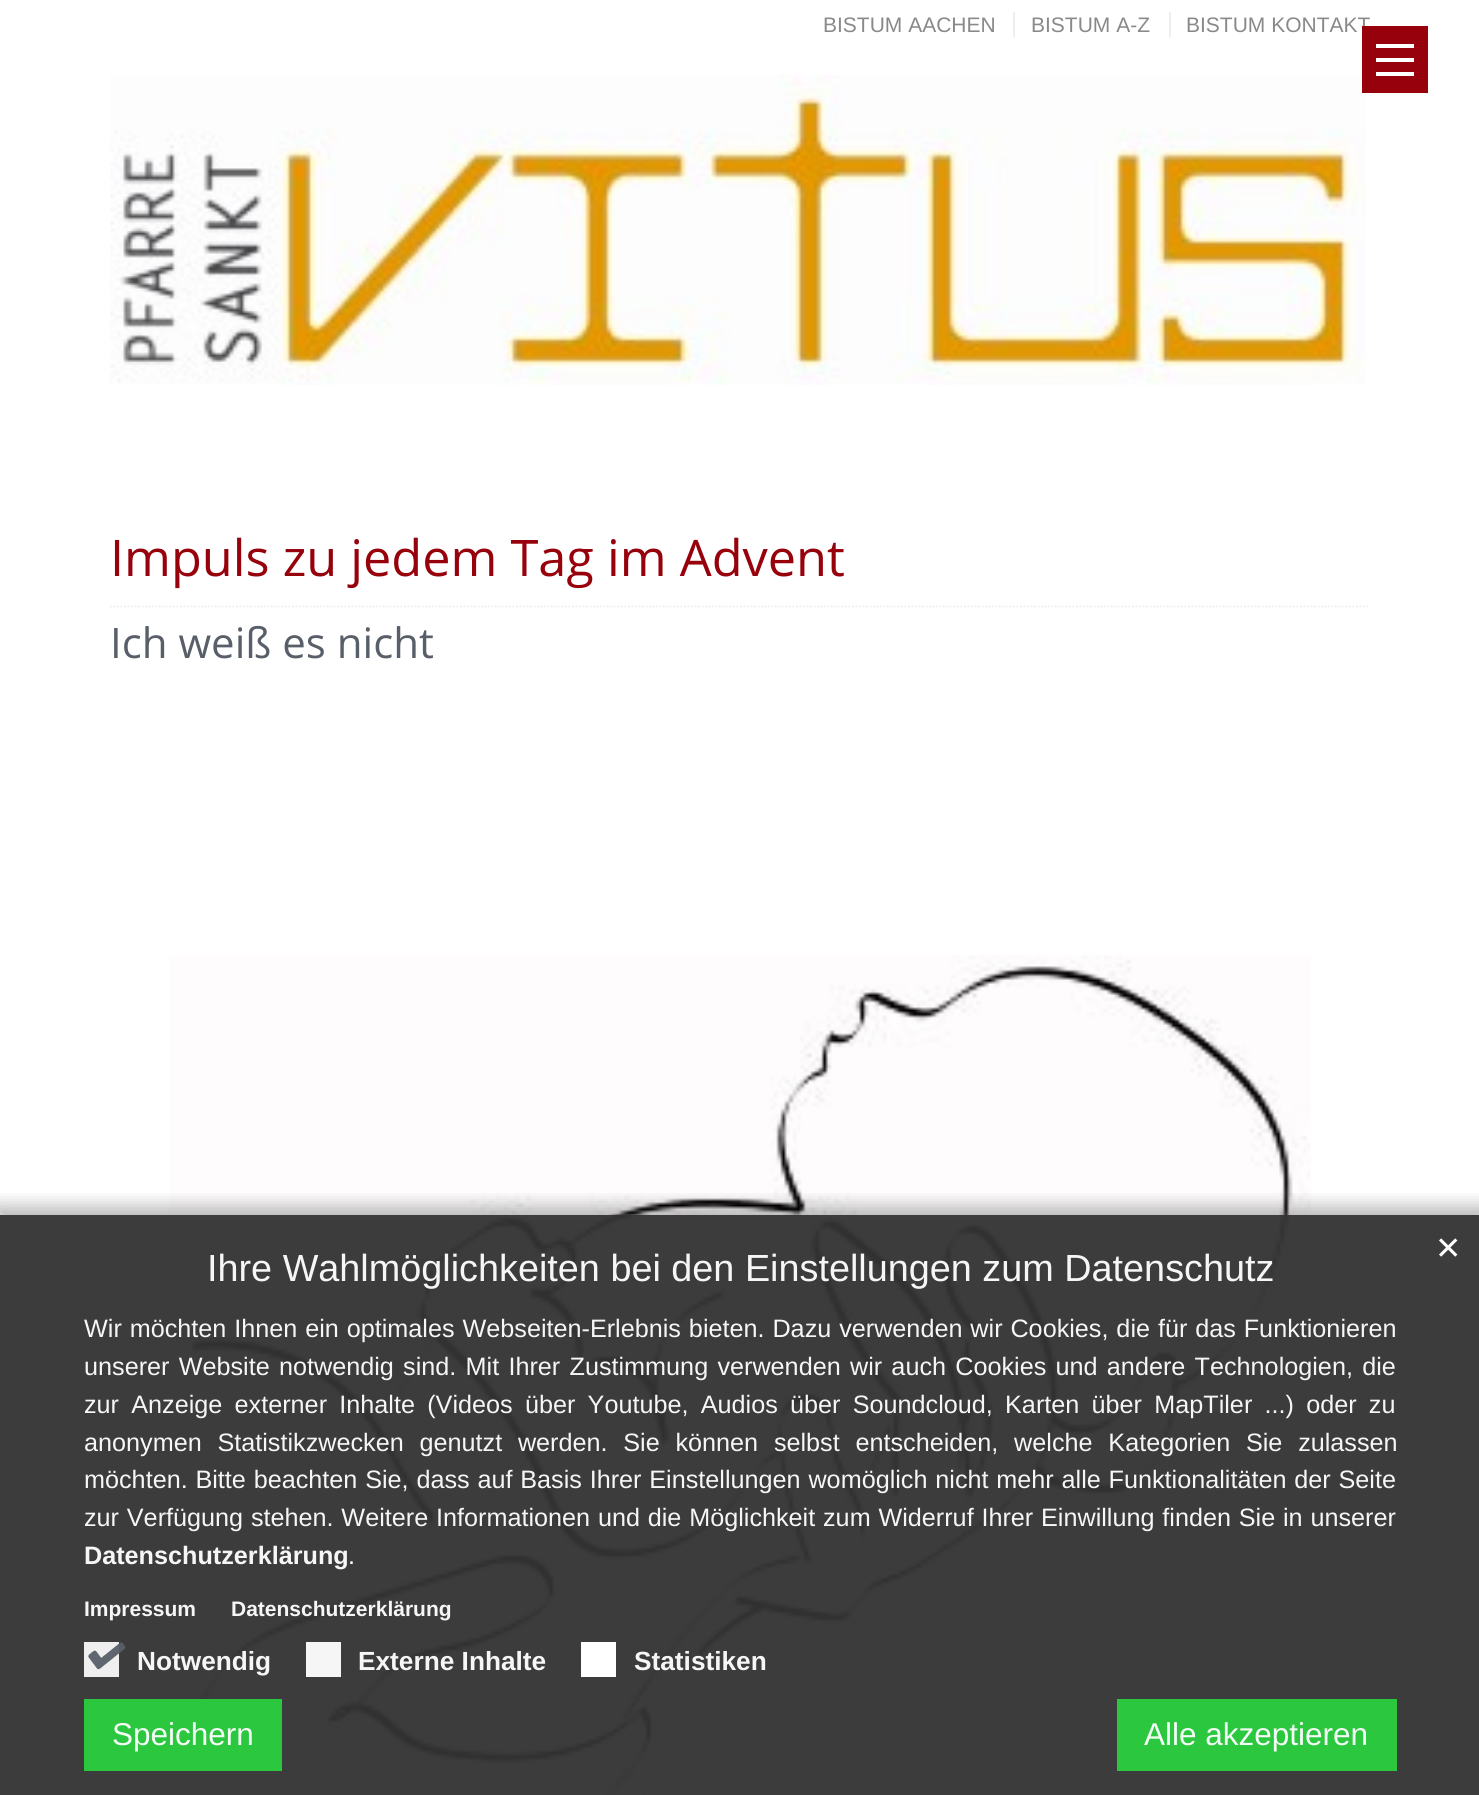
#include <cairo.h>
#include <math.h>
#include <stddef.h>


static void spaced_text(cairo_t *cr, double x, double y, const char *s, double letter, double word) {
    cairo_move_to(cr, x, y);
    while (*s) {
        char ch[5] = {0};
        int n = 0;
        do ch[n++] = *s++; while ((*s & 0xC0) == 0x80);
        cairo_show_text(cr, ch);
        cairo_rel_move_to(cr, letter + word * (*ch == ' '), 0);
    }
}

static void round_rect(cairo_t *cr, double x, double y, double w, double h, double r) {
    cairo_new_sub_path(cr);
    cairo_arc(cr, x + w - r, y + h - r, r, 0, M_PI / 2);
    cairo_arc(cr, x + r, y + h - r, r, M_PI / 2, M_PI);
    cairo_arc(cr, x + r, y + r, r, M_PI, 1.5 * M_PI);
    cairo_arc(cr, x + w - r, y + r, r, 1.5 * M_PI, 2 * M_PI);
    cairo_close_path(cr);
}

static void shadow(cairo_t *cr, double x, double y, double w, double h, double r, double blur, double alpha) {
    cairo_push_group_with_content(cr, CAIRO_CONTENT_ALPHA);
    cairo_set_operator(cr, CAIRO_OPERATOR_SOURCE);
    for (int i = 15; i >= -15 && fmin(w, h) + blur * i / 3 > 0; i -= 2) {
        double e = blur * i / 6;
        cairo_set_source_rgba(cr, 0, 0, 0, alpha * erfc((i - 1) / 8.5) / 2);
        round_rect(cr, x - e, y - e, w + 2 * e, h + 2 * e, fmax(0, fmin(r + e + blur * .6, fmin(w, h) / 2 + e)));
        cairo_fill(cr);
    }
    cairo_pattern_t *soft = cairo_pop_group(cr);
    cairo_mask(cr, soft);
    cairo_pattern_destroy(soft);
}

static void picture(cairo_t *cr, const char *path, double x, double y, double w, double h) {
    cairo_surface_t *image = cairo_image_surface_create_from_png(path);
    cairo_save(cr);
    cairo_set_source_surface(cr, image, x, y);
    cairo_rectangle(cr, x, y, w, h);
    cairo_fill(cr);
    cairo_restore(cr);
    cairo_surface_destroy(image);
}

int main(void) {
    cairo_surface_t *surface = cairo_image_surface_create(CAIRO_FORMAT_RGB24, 1479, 1795);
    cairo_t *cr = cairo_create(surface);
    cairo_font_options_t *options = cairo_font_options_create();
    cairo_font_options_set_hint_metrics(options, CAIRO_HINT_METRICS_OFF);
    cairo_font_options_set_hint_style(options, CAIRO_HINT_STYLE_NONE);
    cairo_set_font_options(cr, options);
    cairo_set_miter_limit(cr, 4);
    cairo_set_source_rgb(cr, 1, 1, 1);
    cairo_paint(cr);
    cairo_select_font_face(cr, "Liberation Sans", CAIRO_FONT_SLANT_NORMAL, CAIRO_FONT_WEIGHT_NORMAL);
    cairo_set_font_size(cr, 21);
    cairo_set_source_rgb(cr, 0.537, 0.537, 0.537);
    cairo_move_to(cr, 823, 32);
    cairo_show_text(cr, "BISTUM AACHEN");
    cairo_move_to(cr, 1031, 32);
    cairo_show_text(cr, "BISTUM A-Z");
    cairo_set_source_rgb(cr, 0.933, 0.933, 0.933);
    cairo_rectangle(cr, 1013, 12, 2, 25);
    cairo_fill(cr);
    cairo_set_source_rgb(cr, 0.537, 0.537, 0.537);
    cairo_move_to(cr, 1186, 32);
    cairo_show_text(cr, "BISTUM KONTAKT");
    cairo_set_source_rgb(cr, 0.933, 0.933, 0.933);
    cairo_rectangle(cr, 1169, 12, 2, 25);
    cairo_fill(cr);
    picture(cr, "img1.png", 110, 75, 1256, 310);
    cairo_set_source_rgb(cr, 0.588, 0.004, 0.043);
    cairo_rectangle(cr, 1362, 26, 66, 67);
    cairo_fill(cr);
    cairo_set_source_rgb(cr, 1, 1, 1);
    cairo_rectangle(cr, 1376, 58, 38, 4);
    cairo_fill(cr);
    cairo_rectangle(cr, 1376, 44, 38, 4);
    cairo_fill(cr);
    cairo_rectangle(cr, 1376, 72, 38, 4);
    cairo_fill(cr);
    cairo_new_path(cr);
    cairo_move_to(cr, 110, 606.5);
    cairo_line_to(cr, 1370, 606.5);
    cairo_set_source_rgb(cr, 0.933, 0.933, 0.933);
    cairo_set_line_width(cr, 1.8);
    cairo_set_dash(cr, (double[]){1.75, 1.75}, 2, 0);
    cairo_stroke(cr);
    cairo_select_font_face(cr, "Open Sans", CAIRO_FONT_SLANT_NORMAL, CAIRO_FONT_WEIGHT_NORMAL);
    cairo_set_font_size(cr, 50.4);
    cairo_set_source_rgb(cr, 0.588, 0.004, 0.043);
    cairo_move_to(cr, 110, 576);
    cairo_show_text(cr, "Impuls zu jedem Tag im Advent");
    cairo_set_font_size(cr, 42);
    cairo_set_source_rgb(cr, 0.345, 0.373, 0.412);
    cairo_move_to(cr, 110, 658);
    cairo_show_text(cr, "Ich weiß es nicht");
    picture(cr, "img2.png", 169, 955, 1142, 840);
    cairo_save(cr);
    cairo_rectangle(cr, 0, 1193, 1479, 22);
    cairo_clip(cr);
    cairo_set_source_rgb(cr, 0, 0, 0);
    shadow(cr, -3, 1206, 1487, 588, 0, 9, 0.28);
    cairo_restore(cr);
    cairo_set_source_rgba(cr, 0.2, 0.2, 0.2, 0.95);
    cairo_rectangle(cr, 0, 1215, 1479, 580);
    cairo_fill(cr);
    cairo_select_font_face(cr, "DejaVu Sans", CAIRO_FONT_SLANT_NORMAL, CAIRO_FONT_WEIGHT_NORMAL);
    cairo_set_font_size(cr, 31.5);
    cairo_set_source_rgb(cr, 1, 1, 1);
    cairo_move_to(cr, 1435, 1259);
    cairo_show_text(cr, "✕");
    cairo_select_font_face(cr, "Liberation Sans", CAIRO_FONT_SLANT_NORMAL, CAIRO_FONT_WEIGHT_NORMAL);
    cairo_set_font_size(cr, 37.8);
    cairo_set_source_rgb(cr, 0.961, 0.961, 0.961);
    cairo_move_to(cr, 207, 1281);
    cairo_show_text(cr, "Ihre Wahlmöglichkeiten bei den Einstellungen zum Datenschutz");
    cairo_set_font_size(cr, 25.2);
    spaced_text(cr, 84, 1337, "Wir möchten Ihnen ein optimales Webseiten-Erlebnis bieten. Dazu verwenden wir Cookies, die für das Funktionieren", 0, 0.9);
    spaced_text(cr, 84, 1375, "unserer Website notwendig sind. Mit Ihrer Zustimmung verwenden wir auch Cookies und andere Technologien, die", 0, 2.25);
    spaced_text(cr, 84, 1413, "zur Anzeige externer Inhalte (Videos über Youtube, Audios über Soundcloud, Karten über MapTiler ...) oder zu", 0, 5.25);
    spaced_text(cr, 84, 1451, "anonymen Statistikzwecken genutzt werden. Sie können selbst entscheiden, welche Kategorien Sie zulassen", 0, 8.75);
    spaced_text(cr, 84, 1488, "möchten. Bitte beachten Sie, dass auf Basis Ihrer Einstellungen womöglich nicht mehr alle Funktionalitäten der Seite", 0, 0.8);
    spaced_text(cr, 84, 1526, "zur Verfügung stehen. Weitere Informationen und die Möglichkeit zum Widerruf Ihrer Einwillung finden Sie in unserer", 0, 0.8);
    cairo_select_font_face(cr, "Liberation Sans", CAIRO_FONT_SLANT_NORMAL, CAIRO_FONT_WEIGHT_BOLD);
    cairo_move_to(cr, 84, 1564);
    cairo_show_text(cr, "Datenschutzerklärung");
    cairo_select_font_face(cr, "Liberation Sans", CAIRO_FONT_SLANT_NORMAL, CAIRO_FONT_WEIGHT_NORMAL);
    cairo_set_source_rgb(cr, 1, 1, 1);
    cairo_move_to(cr, 348, 1564);
    cairo_show_text(cr, ".");
    cairo_select_font_face(cr, "Liberation Sans", CAIRO_FONT_SLANT_NORMAL, CAIRO_FONT_WEIGHT_BOLD);
    cairo_set_font_size(cr, 21);
    cairo_set_source_rgb(cr, 0.961, 0.961, 0.961);
    cairo_move_to(cr, 84, 1616);
    cairo_show_text(cr, "Impressum");
    cairo_move_to(cr, 231, 1616);
    cairo_show_text(cr, "Datenschutzerklärung");
    cairo_set_source_rgb(cr, 0.937, 0.937, 0.937);
    cairo_rectangle(cr, 84, 1642, 35, 35);
    cairo_fill(cr);
    picture(cr, "img3.png", 88, 1642, 38, 28);
    cairo_set_font_size(cr, 26.25);
    cairo_set_source_rgb(cr, 0.961, 0.961, 0.961);
    cairo_move_to(cr, 137, 1670);
    cairo_show_text(cr, "Notwendig");
    cairo_rectangle(cr, 306, 1642, 35, 35);
    cairo_fill(cr);
    cairo_move_to(cr, 358, 1670);
    cairo_show_text(cr, "Externe Inhalte");
    cairo_set_source_rgb(cr, 1, 1, 1);
    cairo_rectangle(cr, 581, 1642, 35, 35);
    cairo_fill(cr);
    cairo_set_source_rgb(cr, 0.961, 0.961, 0.961);
    cairo_move_to(cr, 634, 1670);
    cairo_show_text(cr, "Statistiken");
    cairo_set_source_rgba(cr, 0.161, 0.808, 0.247, 0.95);
    cairo_rectangle(cr, 84, 1699, 198, 72);
    cairo_fill(cr);
    cairo_select_font_face(cr, "Liberation Sans", CAIRO_FONT_SLANT_NORMAL, CAIRO_FONT_WEIGHT_NORMAL);
    cairo_set_font_size(cr, 31.5);
    cairo_set_source_rgb(cr, 0.957, 0.988, 0.961);
    cairo_move_to(cr, 112, 1745);
    cairo_show_text(cr, "Speichern");
    cairo_set_source_rgb(cr, 0.165, 0.78, 0.247);
    cairo_rectangle(cr, 1117, 1699, 280, 72);
    cairo_fill(cr);
    cairo_set_source_rgb(cr, 0.957, 0.988, 0.961);
    cairo_move_to(cr, 1144, 1745);
    cairo_show_text(cr, "Alle akzeptieren");
    cairo_surface_write_to_png(surface, "page.png");
    cairo_font_options_destroy(options);
    cairo_destroy(cr);
    cairo_surface_destroy(surface);
    return 0;
}
